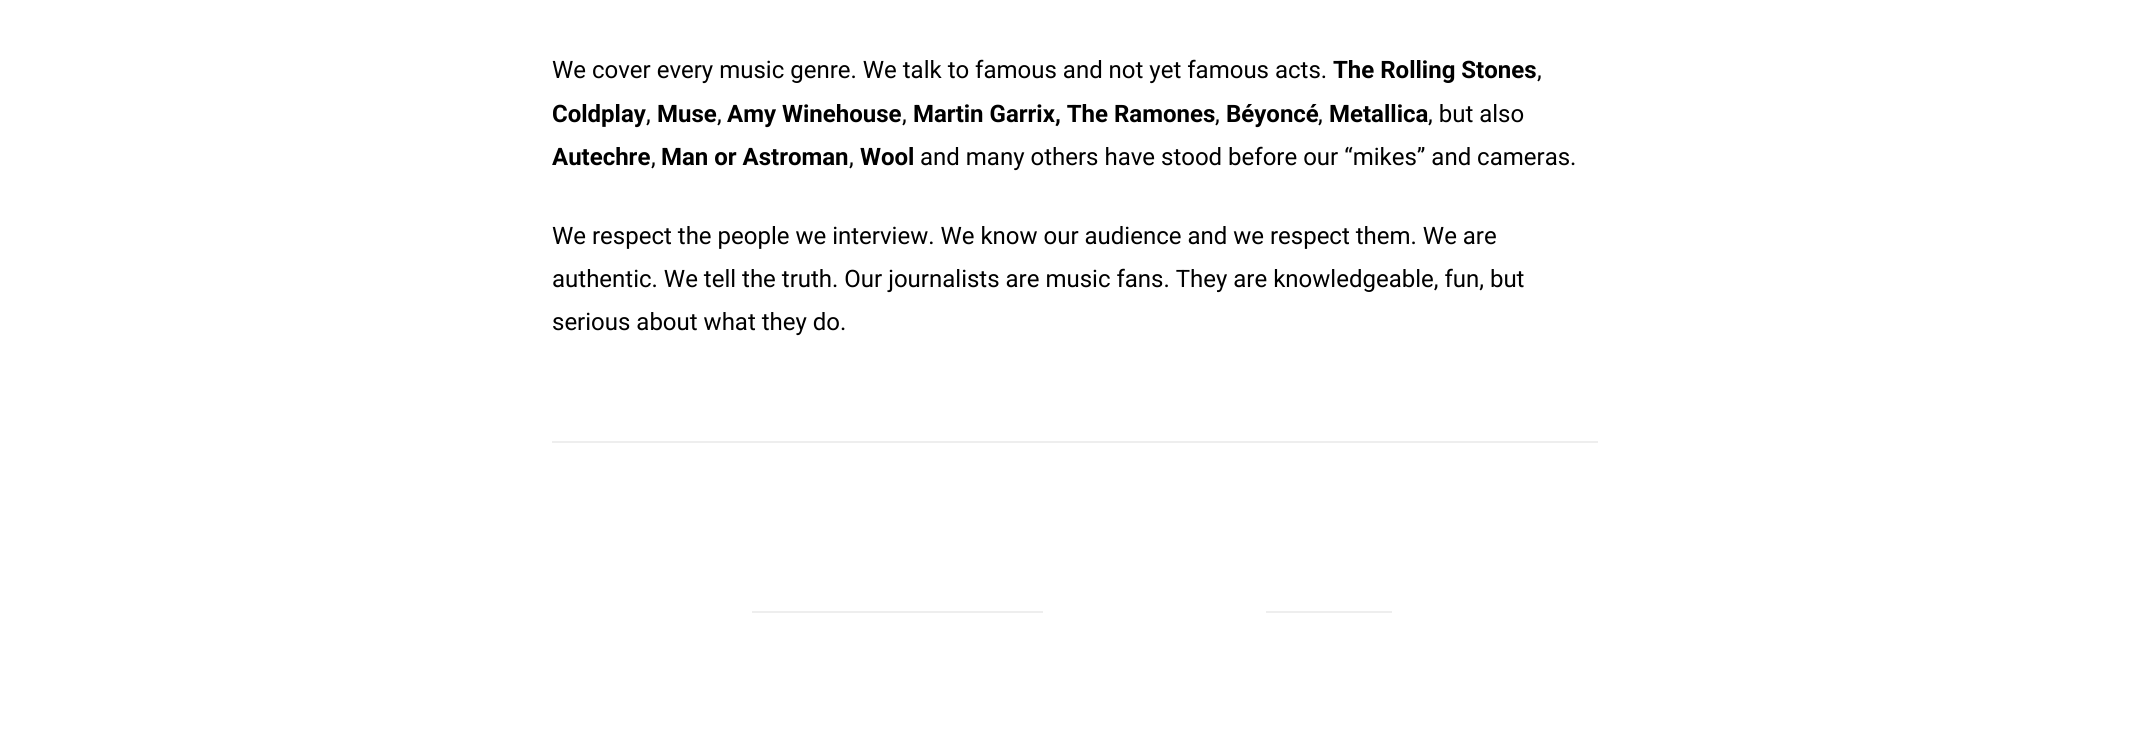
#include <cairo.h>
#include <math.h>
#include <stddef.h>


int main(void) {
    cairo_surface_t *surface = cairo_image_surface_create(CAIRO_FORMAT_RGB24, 2149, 752);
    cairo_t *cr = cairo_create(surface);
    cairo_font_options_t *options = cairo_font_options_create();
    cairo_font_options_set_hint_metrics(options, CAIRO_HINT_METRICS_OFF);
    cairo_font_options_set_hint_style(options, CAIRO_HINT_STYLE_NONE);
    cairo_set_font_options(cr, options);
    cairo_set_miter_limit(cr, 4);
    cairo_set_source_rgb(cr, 1, 1, 1);
    cairo_paint(cr);
    cairo_set_source_rgb(cr, 0.933, 0.933, 0.933);
    cairo_rectangle(cr, 552, 441, 1046, 2);
    cairo_fill(cr);
    cairo_select_font_face(cr, "Roboto", CAIRO_FONT_SLANT_NORMAL, CAIRO_FONT_WEIGHT_NORMAL);
    cairo_set_font_size(cr, 24);
    cairo_set_source_rgb(cr, 0, 0, 0);
    cairo_move_to(cr, 552, 78);
    cairo_show_text(cr, "We cover every music genre. We talk to famous and not yet famous acts.");
    cairo_select_font_face(cr, "Roboto", CAIRO_FONT_SLANT_NORMAL, CAIRO_FONT_WEIGHT_BOLD);
    cairo_move_to(cr, 1333, 78);
    cairo_show_text(cr, "The Rolling Stones");
    cairo_select_font_face(cr, "Roboto", CAIRO_FONT_SLANT_NORMAL, CAIRO_FONT_WEIGHT_NORMAL);
    cairo_move_to(cr, 1537, 78);
    cairo_show_text(cr, ",");
    cairo_select_font_face(cr, "Roboto", CAIRO_FONT_SLANT_NORMAL, CAIRO_FONT_WEIGHT_BOLD);
    cairo_move_to(cr, 552, 122);
    cairo_show_text(cr, "Coldplay");
    cairo_select_font_face(cr, "Roboto", CAIRO_FONT_SLANT_NORMAL, CAIRO_FONT_WEIGHT_NORMAL);
    cairo_move_to(cr, 646, 122);
    cairo_show_text(cr, ",");
    cairo_select_font_face(cr, "Roboto", CAIRO_FONT_SLANT_NORMAL, CAIRO_FONT_WEIGHT_BOLD);
    cairo_move_to(cr, 657, 122);
    cairo_show_text(cr, "Muse");
    cairo_select_font_face(cr, "Roboto", CAIRO_FONT_SLANT_NORMAL, CAIRO_FONT_WEIGHT_NORMAL);
    cairo_move_to(cr, 717, 122);
    cairo_show_text(cr, ",");
    cairo_select_font_face(cr, "Roboto", CAIRO_FONT_SLANT_NORMAL, CAIRO_FONT_WEIGHT_BOLD);
    cairo_move_to(cr, 727, 122);
    cairo_show_text(cr, "Amy Winehouse");
    cairo_select_font_face(cr, "Roboto", CAIRO_FONT_SLANT_NORMAL, CAIRO_FONT_WEIGHT_NORMAL);
    cairo_move_to(cr, 902, 122);
    cairo_show_text(cr, ",");
    cairo_select_font_face(cr, "Roboto", CAIRO_FONT_SLANT_NORMAL, CAIRO_FONT_WEIGHT_BOLD);
    cairo_move_to(cr, 913, 122);
    cairo_show_text(cr, "Martin Garrix, The Ramones");
    cairo_select_font_face(cr, "Roboto", CAIRO_FONT_SLANT_NORMAL, CAIRO_FONT_WEIGHT_NORMAL);
    cairo_move_to(cr, 1215, 122);
    cairo_show_text(cr, ",");
    cairo_select_font_face(cr, "Roboto", CAIRO_FONT_SLANT_NORMAL, CAIRO_FONT_WEIGHT_BOLD);
    cairo_move_to(cr, 1226, 122);
    cairo_show_text(cr, "Béyoncé");
    cairo_select_font_face(cr, "Roboto", CAIRO_FONT_SLANT_NORMAL, CAIRO_FONT_WEIGHT_NORMAL);
    cairo_move_to(cr, 1318, 122);
    cairo_show_text(cr, ",");
    cairo_select_font_face(cr, "Roboto", CAIRO_FONT_SLANT_NORMAL, CAIRO_FONT_WEIGHT_BOLD);
    cairo_move_to(cr, 1329, 122);
    cairo_show_text(cr, "Metallica");
    cairo_select_font_face(cr, "Roboto", CAIRO_FONT_SLANT_NORMAL, CAIRO_FONT_WEIGHT_NORMAL);
    cairo_move_to(cr, 1428, 122);
    cairo_show_text(cr, ", but also");
    cairo_select_font_face(cr, "Roboto", CAIRO_FONT_SLANT_NORMAL, CAIRO_FONT_WEIGHT_BOLD);
    cairo_move_to(cr, 552, 165);
    cairo_show_text(cr, "Autechre");
    cairo_select_font_face(cr, "Roboto", CAIRO_FONT_SLANT_NORMAL, CAIRO_FONT_WEIGHT_NORMAL);
    cairo_move_to(cr, 651, 165);
    cairo_show_text(cr, ",");
    cairo_select_font_face(cr, "Roboto", CAIRO_FONT_SLANT_NORMAL, CAIRO_FONT_WEIGHT_BOLD);
    cairo_move_to(cr, 661, 165);
    cairo_show_text(cr, "Man or Astroman");
    cairo_select_font_face(cr, "Roboto", CAIRO_FONT_SLANT_NORMAL, CAIRO_FONT_WEIGHT_NORMAL);
    cairo_move_to(cr, 849, 165);
    cairo_show_text(cr, ",");
    cairo_select_font_face(cr, "Roboto", CAIRO_FONT_SLANT_NORMAL, CAIRO_FONT_WEIGHT_BOLD);
    cairo_move_to(cr, 860, 165);
    cairo_show_text(cr, "Wool");
    cairo_select_font_face(cr, "Roboto", CAIRO_FONT_SLANT_NORMAL, CAIRO_FONT_WEIGHT_NORMAL);
    cairo_move_to(cr, 920, 165);
    cairo_show_text(cr, "and many others have stood before our “mikes” and cameras.");
    cairo_move_to(cr, 552, 244);
    cairo_show_text(cr, "We respect the people we interview. We know our audience and we respect them. We are");
    cairo_move_to(cr, 552, 287);
    cairo_show_text(cr, "authentic. We tell the truth. Our journalists are music fans. They are knowledgeable, fun, but");
    cairo_move_to(cr, 552, 330);
    cairo_show_text(cr, "serious about what they do.");
    cairo_set_source_rgb(cr, 0.933, 0.933, 0.933);
    cairo_rectangle(cr, 752, 611, 291, 2);
    cairo_fill(cr);
    cairo_rectangle(cr, 1266, 611, 126, 2);
    cairo_fill(cr);
    cairo_surface_write_to_png(surface, "page.png");
    cairo_font_options_destroy(options);
    cairo_destroy(cr);
    cairo_surface_destroy(surface);
    return 0;
}
